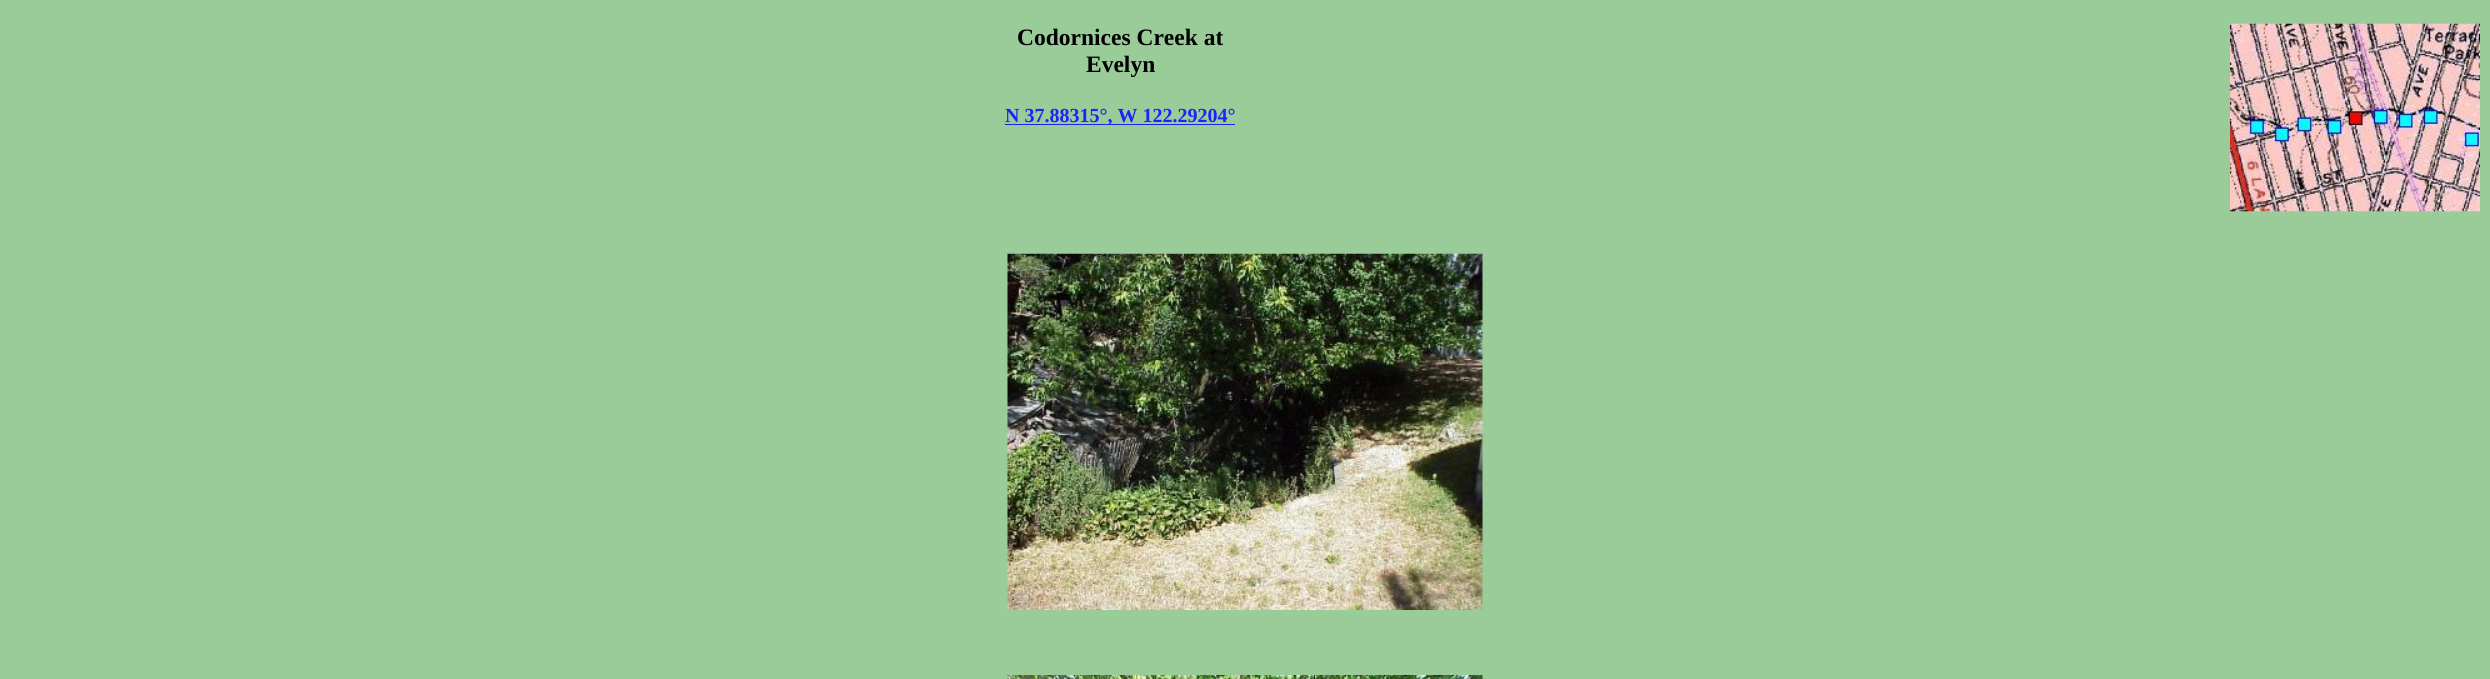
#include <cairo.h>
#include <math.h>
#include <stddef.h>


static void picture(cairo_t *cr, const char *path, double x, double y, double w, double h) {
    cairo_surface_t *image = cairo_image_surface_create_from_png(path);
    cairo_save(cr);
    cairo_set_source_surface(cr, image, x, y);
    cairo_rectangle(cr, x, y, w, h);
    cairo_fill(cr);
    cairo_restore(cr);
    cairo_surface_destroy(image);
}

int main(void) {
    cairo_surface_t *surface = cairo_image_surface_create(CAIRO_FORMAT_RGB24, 2490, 679);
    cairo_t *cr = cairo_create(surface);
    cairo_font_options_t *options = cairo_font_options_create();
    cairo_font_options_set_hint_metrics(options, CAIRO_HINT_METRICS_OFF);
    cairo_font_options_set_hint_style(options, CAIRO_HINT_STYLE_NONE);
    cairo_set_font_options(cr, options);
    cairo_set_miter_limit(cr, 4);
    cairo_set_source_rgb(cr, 0.6, 0.8, 0.6);
    cairo_paint(cr);
    cairo_select_font_face(cr, "Liberation Serif", CAIRO_FONT_SLANT_NORMAL, CAIRO_FONT_WEIGHT_BOLD);
    cairo_set_font_size(cr, 23.5);
    cairo_set_source_rgb(cr, 0, 0, 0);
    cairo_move_to(cr, 1017, 45);
    cairo_show_text(cr, "Codornices Creek at");
    cairo_move_to(cr, 1086, 72);
    cairo_show_text(cr, "Evelyn");
    picture(cr, "img1.png", 2230, 23, 250, 189);
    cairo_set_source_rgb(cr, 0.125, 0.125, 1);
    cairo_rectangle(cr, 1005, 124, 230, 1);
    cairo_fill(cr);
    cairo_set_font_size(cr, 20);
    cairo_move_to(cr, 1005, 122);
    cairo_show_text(cr, "N 37.88315°, W 122.29204°");
    picture(cr, "img2.png", 1007, 253, 476, 357);
    picture(cr, "img3.png", 1007, 675, 476, 4);
    cairo_surface_write_to_png(surface, "page.png");
    cairo_font_options_destroy(options);
    cairo_destroy(cr);
    cairo_surface_destroy(surface);
    return 0;
}
